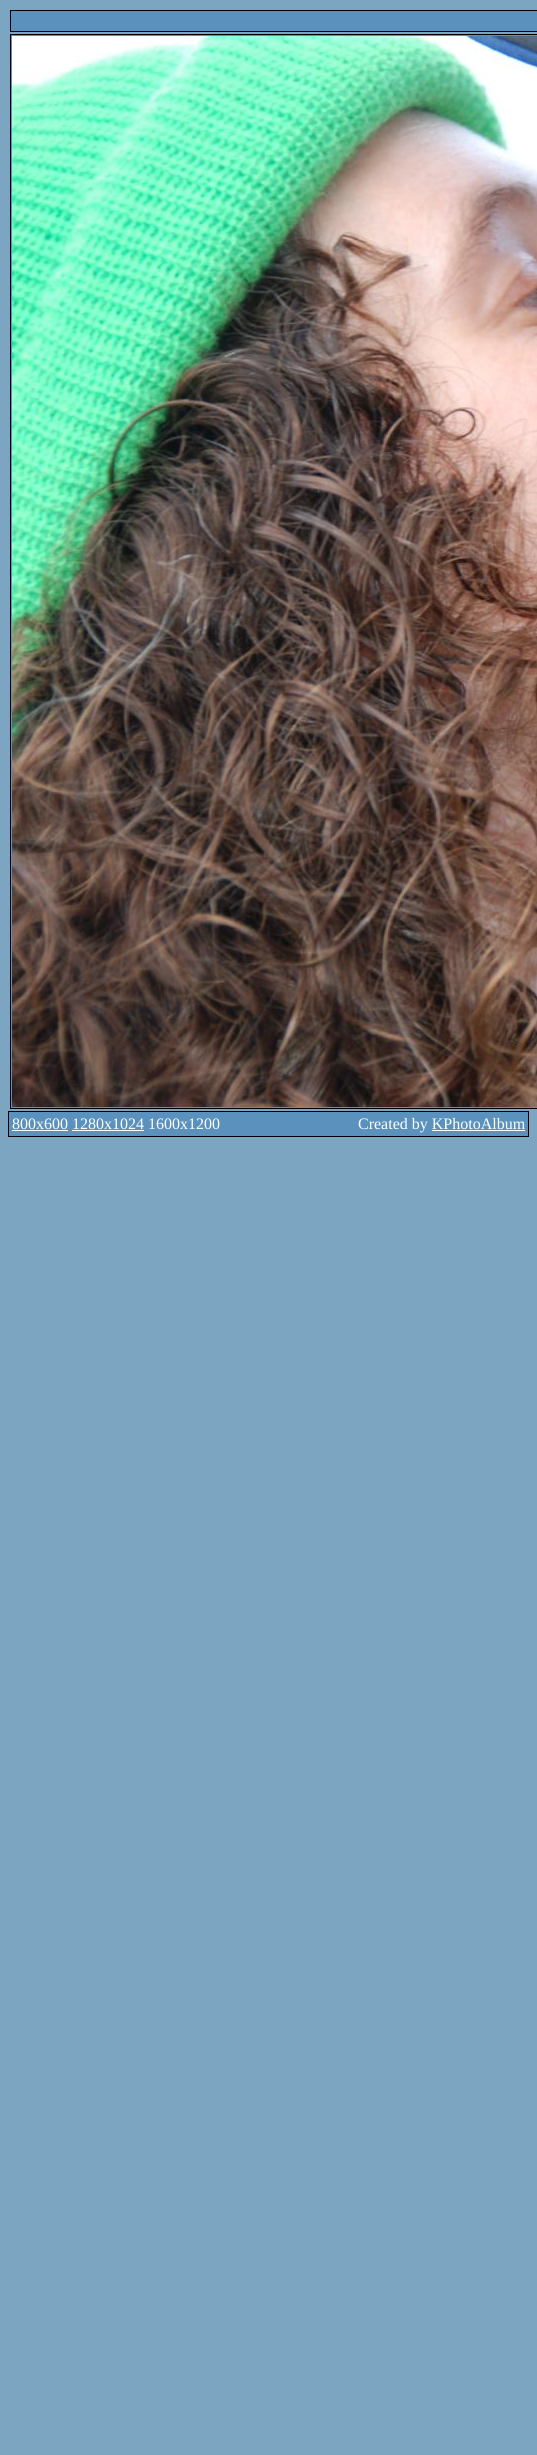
#include <cairo.h>
#include <math.h>
#include <stddef.h>


static void picture(cairo_t *cr, const char *path, double x, double y, double w, double h) {
    cairo_surface_t *image = cairo_image_surface_create_from_png(path);
    cairo_save(cr);
    cairo_set_source_surface(cr, image, x, y);
    cairo_rectangle(cr, x, y, w, h);
    cairo_fill(cr);
    cairo_restore(cr);
    cairo_surface_destroy(image);
}

int main(void) {
    cairo_surface_t *surface = cairo_image_surface_create(CAIRO_FORMAT_RGB24, 537, 2455);
    cairo_t *cr = cairo_create(surface);
    cairo_font_options_t *options = cairo_font_options_create();
    cairo_font_options_set_hint_metrics(options, CAIRO_HINT_METRICS_OFF);
    cairo_font_options_set_hint_style(options, CAIRO_HINT_STYLE_NONE);
    cairo_set_font_options(cr, options);
    cairo_set_miter_limit(cr, 4);
    cairo_set_source_rgb(cr, 0.482, 0.647, 0.757);
    cairo_paint(cr);
    cairo_set_source_rgb(cr, 0.353, 0.569, 0.741);
    cairo_rectangle(cr, 10.5, 10.5, 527, 21);
    cairo_fill_preserve(cr);
    cairo_set_source_rgb(cr, 0, 0, 0);
    cairo_set_line_width(cr, 1);
    cairo_stroke(cr);
    cairo_set_source_rgb(cr, 0.353, 0.569, 0.741);
    cairo_rectangle(cr, 10.5, 34.5, 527, 1074);
    cairo_fill_preserve(cr);
    cairo_set_source_rgb(cr, 0, 0, 0);
    cairo_stroke(cr);
    picture(cr, "img1.png", 12, 36, 525, 1071);
    cairo_set_source_rgb(cr, 0.353, 0.569, 0.741);
    cairo_rectangle(cr, 8.5, 1111.5, 520, 25);
    cairo_fill_preserve(cr);
    cairo_set_source_rgb(cr, 0, 0, 0);
    cairo_stroke(cr);
    cairo_select_font_face(cr, "Liberation Serif", CAIRO_FONT_SLANT_NORMAL, CAIRO_FONT_WEIGHT_NORMAL);
    cairo_set_font_size(cr, 16);
    cairo_set_source_rgb(cr, 1, 1, 1);
    cairo_move_to(cr, 12, 1129);
    cairo_show_text(cr, "800x600 1280x1024 1600x1200");
    cairo_rectangle(cr, 12, 1130, 56, 1);
    cairo_fill(cr);
    cairo_rectangle(cr, 72, 1130, 72, 1);
    cairo_fill(cr);
    cairo_move_to(cr, 358, 1129);
    cairo_show_text(cr, "Created by KPhotoAlbum");
    cairo_rectangle(cr, 432, 1130, 93, 1);
    cairo_fill(cr);
    cairo_surface_write_to_png(surface, "page.png");
    cairo_font_options_destroy(options);
    cairo_destroy(cr);
    cairo_surface_destroy(surface);
    return 0;
}
